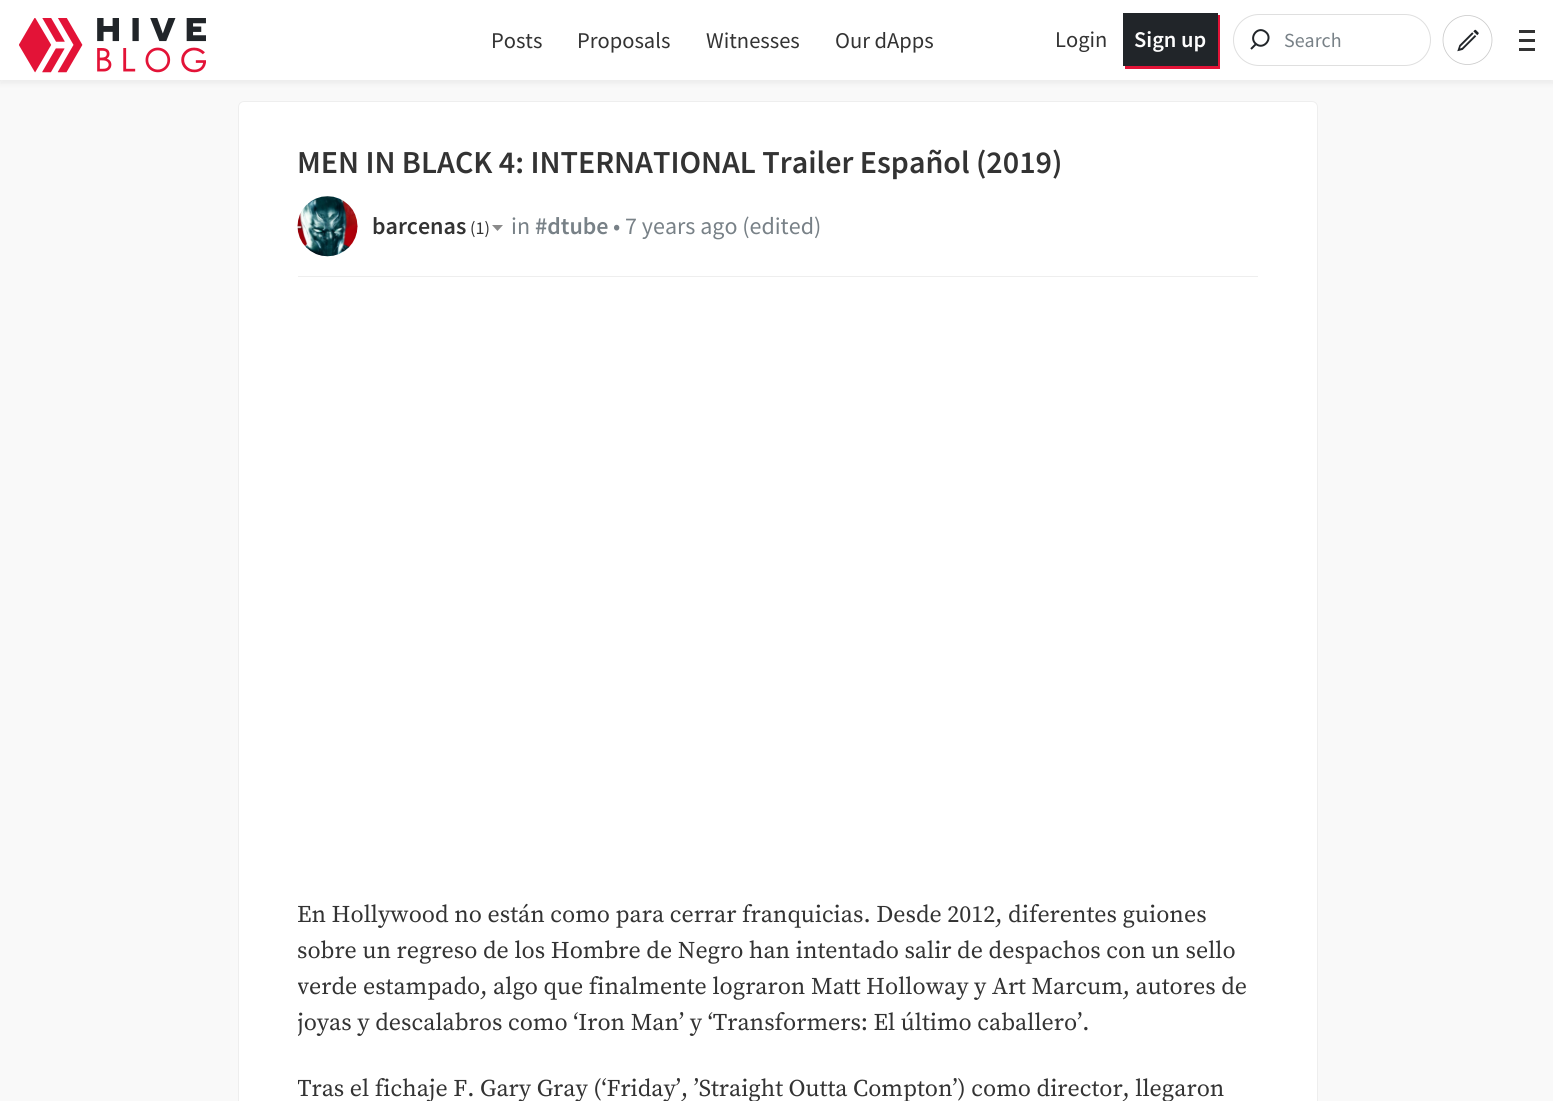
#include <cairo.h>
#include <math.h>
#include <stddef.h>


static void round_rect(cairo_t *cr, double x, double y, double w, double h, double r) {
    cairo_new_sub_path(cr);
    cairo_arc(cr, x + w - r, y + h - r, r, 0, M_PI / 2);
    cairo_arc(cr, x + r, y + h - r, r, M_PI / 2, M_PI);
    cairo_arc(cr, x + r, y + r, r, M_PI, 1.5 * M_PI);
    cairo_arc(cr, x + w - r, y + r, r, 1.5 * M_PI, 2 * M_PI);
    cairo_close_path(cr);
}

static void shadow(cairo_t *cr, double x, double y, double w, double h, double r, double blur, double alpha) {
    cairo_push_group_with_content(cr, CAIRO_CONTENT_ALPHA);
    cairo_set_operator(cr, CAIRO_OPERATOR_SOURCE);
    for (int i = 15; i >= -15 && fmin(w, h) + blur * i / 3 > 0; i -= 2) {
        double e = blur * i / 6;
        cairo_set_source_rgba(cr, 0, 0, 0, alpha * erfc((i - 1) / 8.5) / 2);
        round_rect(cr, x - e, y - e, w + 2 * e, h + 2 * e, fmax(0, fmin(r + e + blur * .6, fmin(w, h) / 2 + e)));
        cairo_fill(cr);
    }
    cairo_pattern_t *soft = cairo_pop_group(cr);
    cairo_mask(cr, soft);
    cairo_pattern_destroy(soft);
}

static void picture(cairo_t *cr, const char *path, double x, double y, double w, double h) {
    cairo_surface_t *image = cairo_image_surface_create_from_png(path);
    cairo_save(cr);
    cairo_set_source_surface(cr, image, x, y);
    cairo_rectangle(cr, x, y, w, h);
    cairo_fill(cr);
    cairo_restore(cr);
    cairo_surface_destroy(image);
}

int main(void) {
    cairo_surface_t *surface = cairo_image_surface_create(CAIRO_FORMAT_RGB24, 1553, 1101);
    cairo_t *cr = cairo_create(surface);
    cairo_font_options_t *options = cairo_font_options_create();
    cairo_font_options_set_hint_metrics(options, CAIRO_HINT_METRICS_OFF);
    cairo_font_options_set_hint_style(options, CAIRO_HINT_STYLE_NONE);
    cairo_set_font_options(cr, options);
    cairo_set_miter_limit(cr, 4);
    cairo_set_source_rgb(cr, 0.973, 0.973, 0.973);
    cairo_paint(cr);
    cairo_set_source_rgb(cr, 0, 0, 0);
    shadow(cr, 0, 3, 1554, 81, 0, 2.5, 0.05);
    cairo_set_source_rgb(cr, 1, 1, 1);
    cairo_rectangle(cr, 0, 0, 1553, 80);
    cairo_fill(cr);
    cairo_set_source_rgb(cr, 0.933, 0.933, 0.933);
    cairo_rectangle(cr, 0, 80, 1, 1);
    cairo_fill(cr);
    picture(cr, "img1.png", 19, 18, 187, 55);
    cairo_select_font_face(cr, "Source Sans Pro", CAIRO_FONT_SLANT_NORMAL, CAIRO_FONT_WEIGHT_NORMAL);
    cairo_set_font_size(cr, 22.5);
    cairo_set_source_rgb(cr, 0.2, 0.2, 0.2);
    cairo_move_to(cr, 491, 48);
    cairo_show_text(cr, "Posts");
    cairo_move_to(cr, 577, 48);
    cairo_show_text(cr, "Proposals");
    cairo_move_to(cr, 706, 48);
    cairo_show_text(cr, "Witnesses");
    cairo_move_to(cr, 835, 48);
    cairo_show_text(cr, "Our dApps");
    cairo_move_to(cr, 1055, 47);
    cairo_show_text(cr, "Login");
    cairo_set_source_rgb(cr, 0.89, 0.075, 0.216);
    cairo_new_path(cr);
    cairo_move_to(cr, 1125, 66);
    cairo_line_to(cr, 1125, 69);
    cairo_line_to(cr, 1220, 69);
    cairo_line_to(cr, 1220, 15);
    cairo_line_to(cr, 1218, 15);
    cairo_line_to(cr, 1218, 66);
    cairo_close_path(cr);
    cairo_fill(cr);
    cairo_set_source_rgb(cr, 0.129, 0.145, 0.161);
    cairo_rectangle(cr, 1123, 13, 95, 53);
    cairo_fill(cr);
    cairo_select_font_face(cr, "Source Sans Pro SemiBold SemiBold", CAIRO_FONT_SLANT_NORMAL, CAIRO_FONT_WEIGHT_NORMAL);
    cairo_set_source_rgb(cr, 0.988, 0.988, 0.988);
    cairo_move_to(cr, 1134, 47);
    cairo_show_text(cr, "Sign up");
    round_rect(cr, 1233.5, 14.5, 197, 51, 25.5);
    cairo_set_source_rgb(cr, 0.875, 0.875, 0.875);
    cairo_set_line_width(cr, 1);
    cairo_stroke(cr);
    cairo_new_path(cr);
    cairo_move_to(cr, 1256, 44);
    cairo_line_to(cr, 1251, 49);
    cairo_line_to(cr, 1256, 44);
    cairo_curve_to(cr, 1248.5, 38, 1257, 26, 1265, 31.5);
    cairo_curve_to(cr, 1274, 37.5, 1264, 50.5, 1256, 44);
    cairo_close_path(cr);
    cairo_set_source_rgb(cr, 0.129, 0.145, 0.161);
    cairo_set_line_width(cr, 2);
    cairo_stroke(cr);
    cairo_select_font_face(cr, "Source Sans Pro", CAIRO_FONT_SLANT_NORMAL, CAIRO_FONT_WEIGHT_NORMAL);
    cairo_set_font_size(cr, 20);
    cairo_set_source_rgb(cr, 0.471, 0.506, 0.529);
    cairo_move_to(cr, 1284, 47);
    cairo_show_text(cr, "Search");
    picture(cr, "img2.png", 1442, 15, 51, 50);
    cairo_set_source_rgb(cr, 0.2, 0.2, 0.2);
    cairo_rectangle(cr, 1519, 48, 16, 3);
    cairo_fill(cr);
    cairo_rectangle(cr, 1519, 39, 16, 3);
    cairo_fill(cr);
    cairo_rectangle(cr, 1519, 30, 16, 3);
    cairo_fill(cr);
    cairo_set_source_rgb(cr, 1, 1, 1);
    round_rect(cr, 238.5, 101.5, 1079, 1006, 5.5);
    cairo_fill_preserve(cr);
    cairo_set_source_rgb(cr, 0.933, 0.933, 0.933);
    cairo_set_line_width(cr, 1);
    cairo_stroke(cr);
    cairo_rectangle(cr, 298, 276, 960, 1);
    cairo_fill(cr);
    cairo_select_font_face(cr, "Source Sans Pro SemiBold SemiBold", CAIRO_FONT_SLANT_NORMAL, CAIRO_FONT_WEIGHT_NORMAL);
    cairo_set_font_size(cr, 32);
    cairo_set_source_rgb(cr, 0.2, 0.2, 0.2);
    cairo_move_to(cr, 297, 173);
    cairo_show_text(cr, "MEN IN BLACK 4: INTERNATIONAL Trailer Español (2019)");
    picture(cr, "img3.png", 297, 196, 61, 61);
    cairo_set_font_size(cr, 24);
    cairo_move_to(cr, 372, 234);
    cairo_show_text(cr, "barcenas");
    cairo_select_font_face(cr, "Source Sans Pro", CAIRO_FONT_SLANT_NORMAL, CAIRO_FONT_WEIGHT_NORMAL);
    cairo_set_font_size(cr, 18);
    cairo_move_to(cr, 470, 234);
    cairo_show_text(cr, "(1)");
    cairo_set_source_rgb(cr, 0.541, 0.541, 0.541);
    cairo_new_path(cr);
    cairo_move_to(cr, 492, 225);
    cairo_line_to(cr, 497.5, 231);
    cairo_line_to(cr, 503, 225);
    cairo_close_path(cr);
    cairo_fill(cr);
    cairo_set_font_size(cr, 24);
    cairo_set_source_rgb(cr, 0.471, 0.506, 0.529);
    cairo_move_to(cr, 511, 234);
    cairo_show_text(cr, "in");
    cairo_select_font_face(cr, "Source Sans Pro SemiBold SemiBold", CAIRO_FONT_SLANT_NORMAL, CAIRO_FONT_WEIGHT_NORMAL);
    cairo_move_to(cr, 535, 234);
    cairo_show_text(cr, "#dtube");
    cairo_select_font_face(cr, "Source Sans Pro", CAIRO_FONT_SLANT_NORMAL, CAIRO_FONT_WEIGHT_NORMAL);
    cairo_move_to(cr, 613, 234);
    cairo_show_text(cr, "• 7 years ago (edited)");
    cairo_select_font_face(cr, "Source Serif Pro", CAIRO_FONT_SLANT_NORMAL, CAIRO_FONT_WEIGHT_NORMAL);
    cairo_set_source_rgb(cr, 0.2, 0.2, 0.2);
    cairo_move_to(cr, 297, 922);
    cairo_show_text(cr, "En Hollywood no están como para cerrar franquicias. Desde 2012, diferentes guiones");
    cairo_move_to(cr, 297, 958);
    cairo_show_text(cr, "sobre un regreso de los Hombre de Negro han intentado salir de despachos con un sello");
    cairo_save(cr);
    cairo_rectangle(cr, 298, 298, 960, 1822);
    cairo_clip(cr);
    cairo_move_to(cr, 297, 994);
    cairo_show_text(cr, "verde estampado, algo que finalmente lograron Matt Holloway y Art Marcum, autores de");
    cairo_move_to(cr, 297, 1030);
    cairo_show_text(cr, "joyas y descalabros como ‘Iron Man’ y ‘Transformers: El último caballero’.");
    cairo_move_to(cr, 297, 1096);
    cairo_show_text(cr, "Tras el fichaje F. Gary Gray (‘Friday’, ’Straight Outta Compton’) como director, llegaron");
    cairo_restore(cr);
    cairo_surface_write_to_png(surface, "page.png");
    cairo_font_options_destroy(options);
    cairo_destroy(cr);
    cairo_surface_destroy(surface);
    return 0;
}
